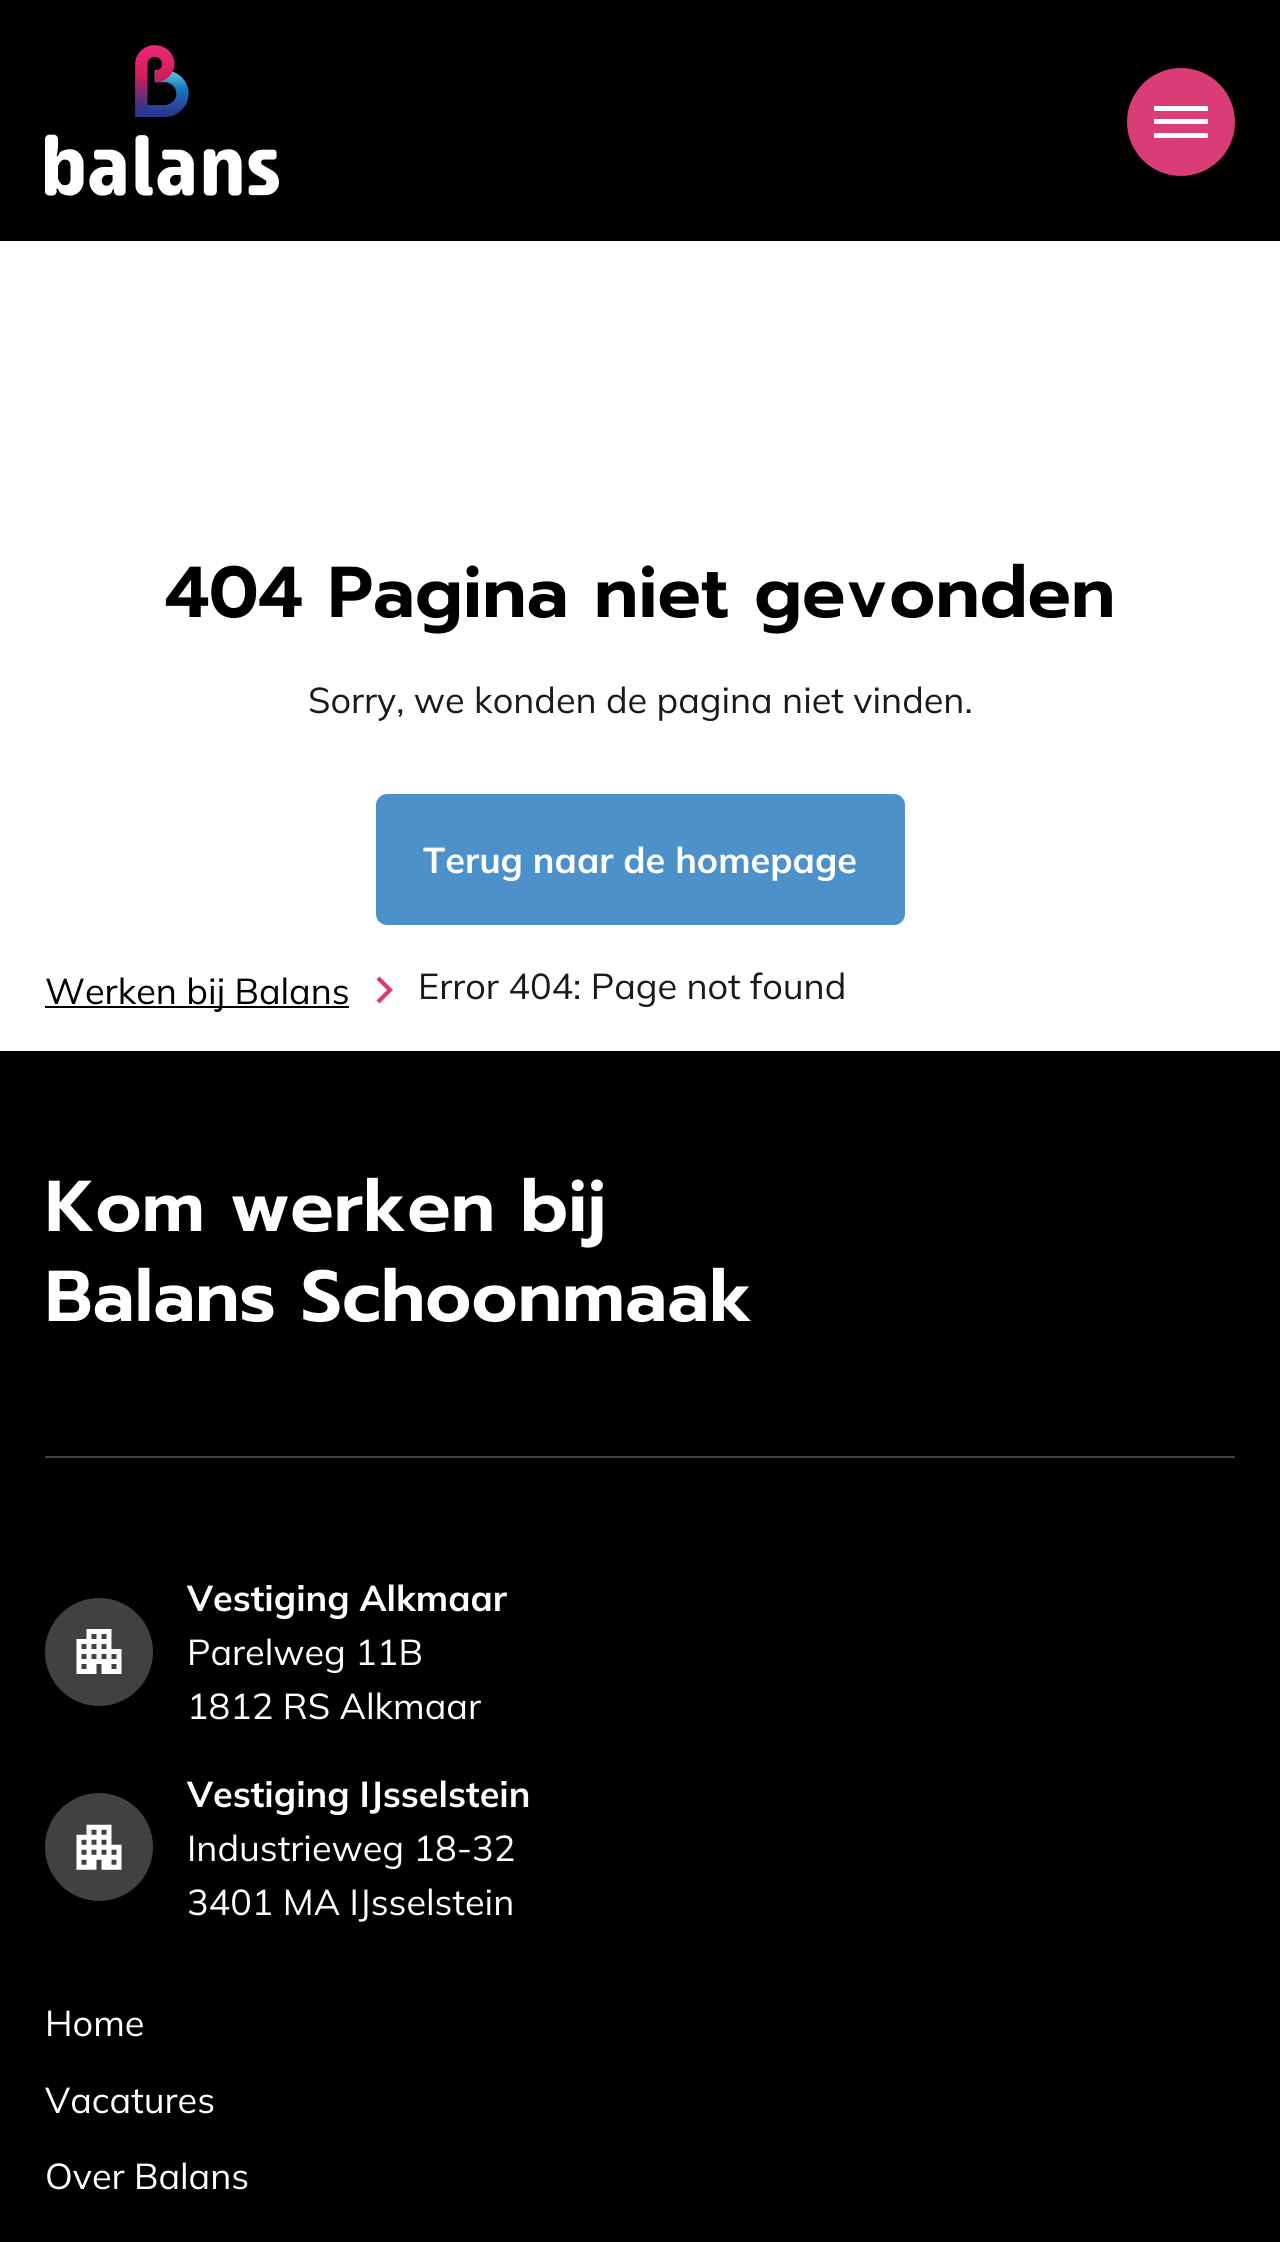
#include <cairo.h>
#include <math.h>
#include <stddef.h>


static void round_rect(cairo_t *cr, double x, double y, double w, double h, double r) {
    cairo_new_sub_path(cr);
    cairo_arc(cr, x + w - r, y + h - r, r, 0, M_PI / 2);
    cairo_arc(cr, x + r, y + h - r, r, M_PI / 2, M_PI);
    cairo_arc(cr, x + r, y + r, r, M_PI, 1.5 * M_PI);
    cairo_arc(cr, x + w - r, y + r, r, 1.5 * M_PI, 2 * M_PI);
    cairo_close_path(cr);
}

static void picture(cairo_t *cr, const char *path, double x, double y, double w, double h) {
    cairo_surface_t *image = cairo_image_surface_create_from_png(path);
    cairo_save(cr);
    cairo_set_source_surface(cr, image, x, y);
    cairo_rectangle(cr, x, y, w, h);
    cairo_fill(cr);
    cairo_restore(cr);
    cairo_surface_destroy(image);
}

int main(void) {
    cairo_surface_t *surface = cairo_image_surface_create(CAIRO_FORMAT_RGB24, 1280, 2242);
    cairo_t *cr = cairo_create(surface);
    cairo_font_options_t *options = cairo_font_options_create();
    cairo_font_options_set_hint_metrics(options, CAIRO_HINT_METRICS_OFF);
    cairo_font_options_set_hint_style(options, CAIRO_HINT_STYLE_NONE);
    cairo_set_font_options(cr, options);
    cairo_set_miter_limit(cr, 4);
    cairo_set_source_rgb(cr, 1, 1, 1);
    cairo_paint(cr);
    cairo_set_source_rgb(cr, 0, 0, 0);
    cairo_rectangle(cr, 0, 0, 1280, 241);
    cairo_fill(cr);
    picture(cr, "img1.png", 45, 45, 234, 151);
    cairo_set_source_rgb(cr, 0.855, 0.235, 0.463);
    cairo_arc(cr, 1181, 122, 54, 0, 2 * M_PI);
    cairo_fill(cr);
    cairo_set_source_rgb(cr, 1, 1, 1);
    cairo_rectangle(cr, 1154, 106, 54, 5);
    cairo_fill(cr);
    cairo_rectangle(cr, 1154, 119, 54, 5);
    cairo_fill(cr);
    cairo_rectangle(cr, 1154, 133, 54, 5);
    cairo_fill(cr);
    cairo_select_font_face(cr, "Prompt SemiBold", CAIRO_FONT_SLANT_NORMAL, CAIRO_FONT_WEIGHT_NORMAL);
    cairo_set_font_size(cr, 72);
    cairo_set_source_rgb(cr, 0, 0, 0);
    cairo_move_to(cr, 165, 617);
    cairo_show_text(cr, "404 Pagina niet gevonden");
    cairo_select_font_face(cr, "Mulish ExtraLight", CAIRO_FONT_SLANT_NORMAL, CAIRO_FONT_WEIGHT_NORMAL);
    cairo_set_font_size(cr, 36);
    cairo_set_source_rgb(cr, 0.102, 0.102, 0.102);
    cairo_move_to(cr, 308, 713);
    cairo_show_text(cr, "Sorry, we konden de pagina niet vinden.");
    cairo_set_source_rgb(cr, 0.298, 0.569, 0.792);
    round_rect(cr, 377, 795, 527, 129, 10);
    cairo_fill_preserve(cr);
    cairo_stroke(cr);
    cairo_select_font_face(cr, "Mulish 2 ExtraLight", CAIRO_FONT_SLANT_NORMAL, CAIRO_FONT_WEIGHT_NORMAL);
    cairo_set_source_rgb(cr, 1, 1, 1);
    cairo_move_to(cr, 423, 873);
    cairo_show_text(cr, "Terug naar de homepage");
    cairo_set_source_rgb(cr, 0, 0, 0);
    cairo_rectangle(cr, 45, 1006, 304, 2);
    cairo_fill(cr);
    cairo_select_font_face(cr, "Mulish ExtraLight", CAIRO_FONT_SLANT_NORMAL, CAIRO_FONT_WEIGHT_NORMAL);
    cairo_move_to(cr, 45, 1004);
    cairo_show_text(cr, "Werken bij Balans");
    cairo_set_source_rgb(cr, 0.855, 0.235, 0.463);
    cairo_new_path(cr);
    cairo_move_to(cr, 387, 990);
    cairo_line_to(cr, 376.5, 979.5);
    cairo_line_to(cr, 379.5, 976.5);
    cairo_line_to(cr, 393, 990);
    cairo_line_to(cr, 379.5, 1003.5);
    cairo_line_to(cr, 376.5, 1000.5);
    cairo_close_path(cr);
    cairo_fill(cr);
    cairo_set_source_rgb(cr, 0.102, 0.102, 0.102);
    cairo_move_to(cr, 418, 999);
    cairo_show_text(cr, "Error 404: Page not found");
    cairo_set_source_rgb(cr, 0, 0, 0);
    cairo_rectangle(cr, 0, 1051, 1280, 1191);
    cairo_fill(cr);
    cairo_select_font_face(cr, "Prompt SemiBold", CAIRO_FONT_SLANT_NORMAL, CAIRO_FONT_WEIGHT_NORMAL);
    cairo_set_font_size(cr, 72);
    cairo_set_source_rgb(cr, 1, 1, 1);
    cairo_move_to(cr, 45, 1231);
    cairo_show_text(cr, "Kom werken bij");
    cairo_move_to(cr, 45, 1321);
    cairo_show_text(cr, "Balans Schoonmaak");
    cairo_set_source_rgb(cr, 0.255, 0.255, 0.255);
    cairo_rectangle(cr, 45, 1456, 1190, 2);
    cairo_fill(cr);
    cairo_arc(cr, 99, 1652, 54, 0, 2 * M_PI);
    cairo_fill(cr);
    picture(cr, "img2.png", 76, 1629, 46, 45);
    cairo_select_font_face(cr, "Mulish 2 ExtraLight", CAIRO_FONT_SLANT_NORMAL, CAIRO_FONT_WEIGHT_NORMAL);
    cairo_set_font_size(cr, 36);
    cairo_set_source_rgb(cr, 1, 1, 1);
    cairo_move_to(cr, 187, 1611);
    cairo_show_text(cr, "Vestiging Alkmaar");
    cairo_select_font_face(cr, "Mulish ExtraLight", CAIRO_FONT_SLANT_NORMAL, CAIRO_FONT_WEIGHT_NORMAL);
    cairo_move_to(cr, 187, 1665);
    cairo_show_text(cr, "Parelweg 11B");
    cairo_move_to(cr, 187, 1719);
    cairo_show_text(cr, "1812 RS Alkmaar");
    cairo_set_source_rgb(cr, 0.255, 0.255, 0.255);
    cairo_new_path(cr);
    cairo_arc(cr, 99, 1847, 54, 0, 2 * M_PI);
    cairo_fill(cr);
    picture(cr, "img3.png", 76, 1824, 46, 46);
    cairo_select_font_face(cr, "Mulish 2 ExtraLight", CAIRO_FONT_SLANT_NORMAL, CAIRO_FONT_WEIGHT_NORMAL);
    cairo_set_source_rgb(cr, 1, 1, 1);
    cairo_move_to(cr, 187, 1807);
    cairo_show_text(cr, "Vestiging IJsselstein");
    cairo_select_font_face(cr, "Mulish ExtraLight", CAIRO_FONT_SLANT_NORMAL, CAIRO_FONT_WEIGHT_NORMAL);
    cairo_move_to(cr, 187, 1861);
    cairo_show_text(cr, "Industrieweg 18-32");
    cairo_move_to(cr, 187, 1915);
    cairo_show_text(cr, "3401 MA IJsselstein");
    cairo_move_to(cr, 45, 2036);
    cairo_show_text(cr, "Home");
    cairo_move_to(cr, 45, 2113);
    cairo_show_text(cr, "Vacatures");
    cairo_move_to(cr, 45, 2189);
    cairo_show_text(cr, "Over Balans");
    cairo_surface_write_to_png(surface, "page.png");
    cairo_font_options_destroy(options);
    cairo_destroy(cr);
    cairo_surface_destroy(surface);
    return 0;
}
